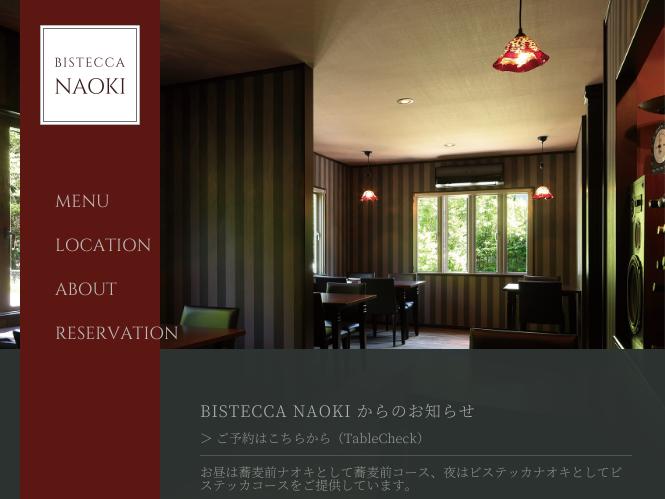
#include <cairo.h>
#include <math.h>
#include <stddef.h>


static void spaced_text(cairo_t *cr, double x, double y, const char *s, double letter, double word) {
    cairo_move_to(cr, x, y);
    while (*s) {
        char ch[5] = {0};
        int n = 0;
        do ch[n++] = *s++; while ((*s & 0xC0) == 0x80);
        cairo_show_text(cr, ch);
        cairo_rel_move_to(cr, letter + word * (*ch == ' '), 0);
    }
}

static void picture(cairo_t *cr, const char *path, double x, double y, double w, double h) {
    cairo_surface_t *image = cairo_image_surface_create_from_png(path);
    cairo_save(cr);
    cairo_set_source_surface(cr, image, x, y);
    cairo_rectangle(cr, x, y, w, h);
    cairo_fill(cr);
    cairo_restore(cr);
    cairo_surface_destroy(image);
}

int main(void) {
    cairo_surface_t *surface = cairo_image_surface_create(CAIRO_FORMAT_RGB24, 665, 499);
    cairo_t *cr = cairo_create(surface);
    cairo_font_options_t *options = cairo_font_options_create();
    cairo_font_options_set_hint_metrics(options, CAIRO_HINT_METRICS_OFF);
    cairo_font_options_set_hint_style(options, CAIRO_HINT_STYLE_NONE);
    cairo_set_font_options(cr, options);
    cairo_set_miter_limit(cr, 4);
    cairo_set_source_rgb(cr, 1, 1, 1);
    cairo_paint(cr);
    picture(cr, "img1.png", 0, 0, 665, 499);
    cairo_set_source_rgba(cr, 0.18, 0.204, 0.196, 0.97);
    cairo_rectangle(cr, 0, 349, 665, 150);
    cairo_fill(cr);
    cairo_set_source_rgb(cr, 0.365, 0.09, 0.071);
    cairo_rectangle(cr, 20, 0, 140, 499);
    cairo_fill(cr);
    picture(cr, "img2.png", 40, 25, 100, 100);
    cairo_select_font_face(cr, "Cinzel", CAIRO_FONT_SLANT_NORMAL, CAIRO_FONT_WEIGHT_NORMAL);
    cairo_set_font_size(cr, 17.5);
    cairo_set_source_rgb(cr, 0.745, 0.733, 0.729);
    cairo_move_to(cr, 55, 207);
    cairo_show_text(cr, "MENU");
    cairo_move_to(cr, 55, 251);
    cairo_show_text(cr, "LOCATION");
    cairo_move_to(cr, 55, 295);
    cairo_show_text(cr, "ABOUT");
    cairo_move_to(cr, 55, 339);
    cairo_show_text(cr, "RESERVATION");
    cairo_select_font_face(cr, "Noto Serif JP ExtraLight", CAIRO_FONT_SLANT_NORMAL, CAIRO_FONT_WEIGHT_NORMAL);
    cairo_set_font_size(cr, 16);
    cairo_set_source_rgb(cr, 0.714, 0.729, 0.718);
    spaced_text(cr, 200, 417, "BISTECCA NAOKI からのお知らせ", 1, 0);
    cairo_set_source_rgb(cr, 0.325, 0.325, 0.325);
    cairo_rectangle(cr, 200, 455, 432, 1);
    cairo_fill(cr);
    cairo_set_font_size(cr, 12.8);
    cairo_set_source_rgb(cr, 0.604, 0.624, 0.604);
    cairo_move_to(cr, 200, 443);
    cairo_show_text(cr, "＞ ご予約はこちらから（TableCheck）");
    cairo_move_to(cr, 200, 477);
    cairo_show_text(cr, "お昼は蕎麦前ナオキとして蕎麦前コース、夜はビステッカナオキとしてビ");
    cairo_move_to(cr, 200, 490);
    cairo_show_text(cr, "ステッカコースをご提供しています。");
    cairo_surface_write_to_png(surface, "page.png");
    cairo_font_options_destroy(options);
    cairo_destroy(cr);
    cairo_surface_destroy(surface);
    return 0;
}
